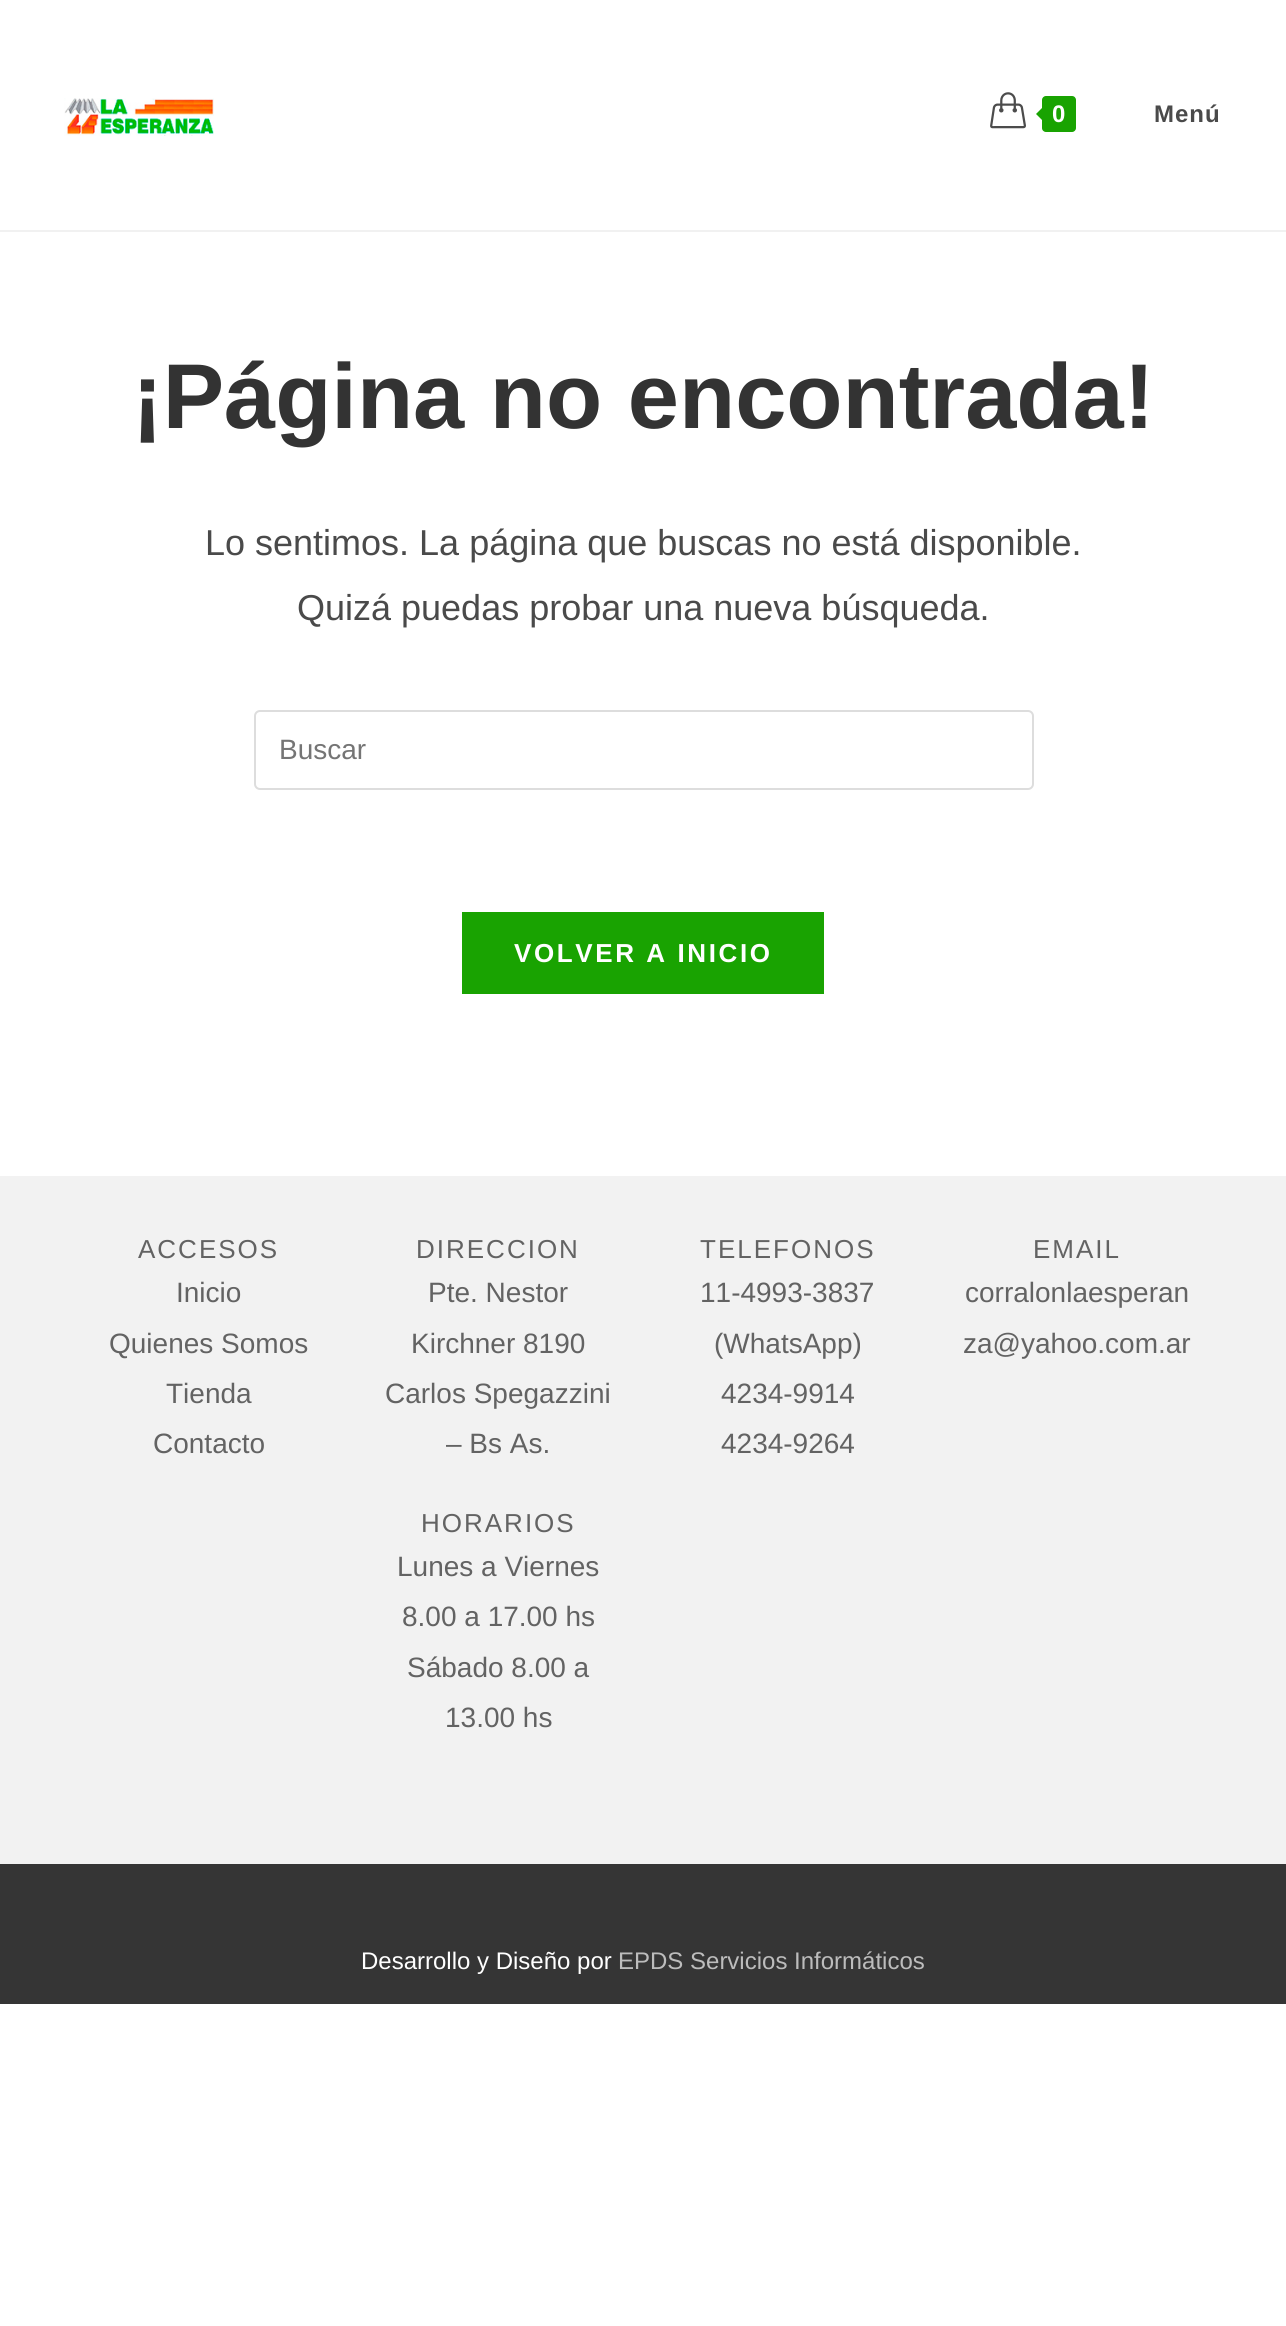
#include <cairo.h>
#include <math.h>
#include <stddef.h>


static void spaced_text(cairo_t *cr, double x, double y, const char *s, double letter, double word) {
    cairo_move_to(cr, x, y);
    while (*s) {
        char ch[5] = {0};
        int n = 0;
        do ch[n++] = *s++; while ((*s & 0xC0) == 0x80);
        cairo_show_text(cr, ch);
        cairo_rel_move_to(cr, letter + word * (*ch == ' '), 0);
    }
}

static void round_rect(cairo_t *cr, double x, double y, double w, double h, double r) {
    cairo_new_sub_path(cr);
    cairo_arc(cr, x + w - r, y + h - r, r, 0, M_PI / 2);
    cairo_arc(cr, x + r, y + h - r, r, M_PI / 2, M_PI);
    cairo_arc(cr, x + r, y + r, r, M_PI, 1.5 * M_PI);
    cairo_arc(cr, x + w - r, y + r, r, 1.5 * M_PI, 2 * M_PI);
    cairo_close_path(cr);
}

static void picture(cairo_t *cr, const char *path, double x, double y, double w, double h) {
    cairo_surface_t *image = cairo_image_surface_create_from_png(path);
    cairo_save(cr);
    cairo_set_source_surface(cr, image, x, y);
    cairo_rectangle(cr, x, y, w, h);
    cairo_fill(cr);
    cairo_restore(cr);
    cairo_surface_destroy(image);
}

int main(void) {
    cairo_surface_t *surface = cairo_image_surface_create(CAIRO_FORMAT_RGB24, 1286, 2326);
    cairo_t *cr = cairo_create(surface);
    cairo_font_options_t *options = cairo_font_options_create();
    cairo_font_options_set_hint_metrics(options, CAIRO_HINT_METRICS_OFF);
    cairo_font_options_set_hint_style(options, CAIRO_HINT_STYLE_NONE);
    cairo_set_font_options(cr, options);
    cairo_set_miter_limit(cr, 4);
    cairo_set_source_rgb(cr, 1, 1, 1);
    cairo_paint(cr);
    cairo_set_source_rgb(cr, 0.945, 0.945, 0.945);
    cairo_rectangle(cr, 0, 230, 1286, 2);
    cairo_fill(cr);
    picture(cr, "img1.png", 64, 98, 150, 38);
    picture(cr, "img2.png", 990, 92, 36, 37);
    cairo_set_source_rgb(cr, 0.098, 0.639, 0.004);
    round_rect(cr, 1042, 96, 34, 36, 4);
    cairo_fill(cr);
    cairo_new_path(cr);
    cairo_move_to(cr, 1046, 104);
    cairo_line_to(cr, 1046, 124);
    cairo_line_to(cr, 1036, 114);
    cairo_close_path(cr);
    cairo_fill(cr);
    cairo_select_font_face(cr, "Liberation Sans", CAIRO_FONT_SLANT_NORMAL, CAIRO_FONT_WEIGHT_BOLD);
    cairo_set_font_size(cr, 24);
    cairo_set_source_rgb(cr, 1, 1, 1);
    spaced_text(cr, 1052, 122, "0", 1, 0);
    cairo_set_source_rgb(cr, 0.29, 0.29, 0.29);
    spaced_text(cr, 1154, 122, "Menú", 1, 0);
    cairo_set_font_size(cr, 92);
    cairo_set_source_rgb(cr, 0.2, 0.2, 0.2);
    cairo_move_to(cr, 132, 428);
    cairo_show_text(cr, "¡Página no encontrada!");
    cairo_select_font_face(cr, "Liberation Sans", CAIRO_FONT_SLANT_NORMAL, CAIRO_FONT_WEIGHT_NORMAL);
    cairo_set_font_size(cr, 36);
    cairo_set_source_rgb(cr, 0.29, 0.29, 0.29);
    cairo_move_to(cr, 205, 555);
    cairo_show_text(cr, "Lo sentimos. La página que buscas no está disponible.");
    cairo_move_to(cr, 297, 620);
    cairo_show_text(cr, "Quizá puedas probar una nueva búsqueda.");
    round_rect(cr, 255, 711, 778, 78, 5);
    cairo_set_source_rgb(cr, 0.867, 0.867, 0.867);
    cairo_stroke(cr);
    cairo_set_font_size(cr, 28);
    cairo_set_source_rgb(cr, 0.459, 0.459, 0.459);
    cairo_move_to(cr, 279, 759);
    cairo_show_text(cr, "Buscar");
    cairo_set_source_rgb(cr, 0.098, 0.639, 0.004);
    cairo_rectangle(cr, 462, 912, 362, 82);
    cairo_fill(cr);
    cairo_select_font_face(cr, "Liberation Sans", CAIRO_FONT_SLANT_NORMAL, CAIRO_FONT_WEIGHT_BOLD);
    cairo_set_font_size(cr, 26);
    cairo_set_source_rgb(cr, 1, 1, 1);
    spaced_text(cr, 514, 962, "VOLVER A INICIO", 2.6, 0);
    cairo_set_source_rgb(cr, 0.949, 0.949, 0.949);
    cairo_rectangle(cr, 0, 1176, 1286, 688);
    cairo_fill(cr);
    cairo_select_font_face(cr, "Liberation Sans", CAIRO_FONT_SLANT_NORMAL, CAIRO_FONT_WEIGHT_NORMAL);
    cairo_set_source_rgb(cr, 0.388, 0.388, 0.388);
    spaced_text(cr, 138, 1258, "ACCESOS", 2, 0);
    cairo_set_font_size(cr, 28);
    cairo_move_to(cr, 176, 1302);
    cairo_show_text(cr, "Inicio");
    cairo_move_to(cr, 109, 1353);
    cairo_show_text(cr, "Quienes Somos");
    cairo_move_to(cr, 166, 1403);
    cairo_show_text(cr, "Tienda");
    cairo_move_to(cr, 153, 1453);
    cairo_show_text(cr, "Contacto");
    cairo_set_font_size(cr, 26);
    spaced_text(cr, 416, 1258, "DIRECCION", 2, 0);
    cairo_set_font_size(cr, 28);
    cairo_move_to(cr, 428, 1302);
    cairo_show_text(cr, "Pte. Nestor");
    cairo_move_to(cr, 411, 1353);
    cairo_show_text(cr, "Kirchner 8190");
    cairo_move_to(cr, 385, 1403);
    cairo_show_text(cr, "Carlos Spegazzini");
    cairo_move_to(cr, 446, 1453);
    cairo_show_text(cr, "– Bs As.");
    cairo_set_font_size(cr, 26);
    spaced_text(cr, 421, 1532, "HORARIOS", 2, 0);
    cairo_set_font_size(cr, 28);
    cairo_move_to(cr, 397, 1576);
    cairo_show_text(cr, "Lunes a Viernes");
    cairo_move_to(cr, 402, 1626);
    cairo_show_text(cr, "8.00 a 17.00 hs");
    cairo_move_to(cr, 407, 1677);
    cairo_show_text(cr, "Sábado 8.00 a");
    cairo_move_to(cr, 445, 1727);
    cairo_show_text(cr, "13.00 hs");
    cairo_set_font_size(cr, 26);
    spaced_text(cr, 700, 1258, "TELEFONOS", 2, 0);
    cairo_set_font_size(cr, 28);
    cairo_move_to(cr, 700, 1302);
    cairo_show_text(cr, "11-4993-3837");
    cairo_move_to(cr, 714, 1353);
    cairo_show_text(cr, "(WhatsApp)");
    cairo_move_to(cr, 721, 1403);
    cairo_show_text(cr, "4234-9914");
    cairo_move_to(cr, 721, 1453);
    cairo_show_text(cr, "4234-9264");
    cairo_set_font_size(cr, 26);
    spaced_text(cr, 1033, 1258, "EMAIL", 2, 0);
    cairo_set_font_size(cr, 28);
    cairo_move_to(cr, 965, 1302);
    cairo_show_text(cr, "corralonlaesperan");
    cairo_move_to(cr, 963, 1353);
    cairo_show_text(cr, "za@yahoo.com.ar");
    cairo_set_source_rgb(cr, 0.208, 0.208, 0.208);
    cairo_rectangle(cr, 0, 1864, 1286, 140);
    cairo_fill(cr);
    cairo_set_font_size(cr, 24);
    cairo_set_source_rgb(cr, 1, 1, 1);
    cairo_move_to(cr, 361, 1969);
    cairo_show_text(cr, "Desarrollo y Diseño por");
    cairo_set_source_rgb(cr, 0.737, 0.737, 0.737);
    cairo_move_to(cr, 618, 1969);
    cairo_show_text(cr, "EPDS Servicios Informáticos");
    cairo_surface_write_to_png(surface, "page.png");
    cairo_font_options_destroy(options);
    cairo_destroy(cr);
    cairo_surface_destroy(surface);
    return 0;
}
